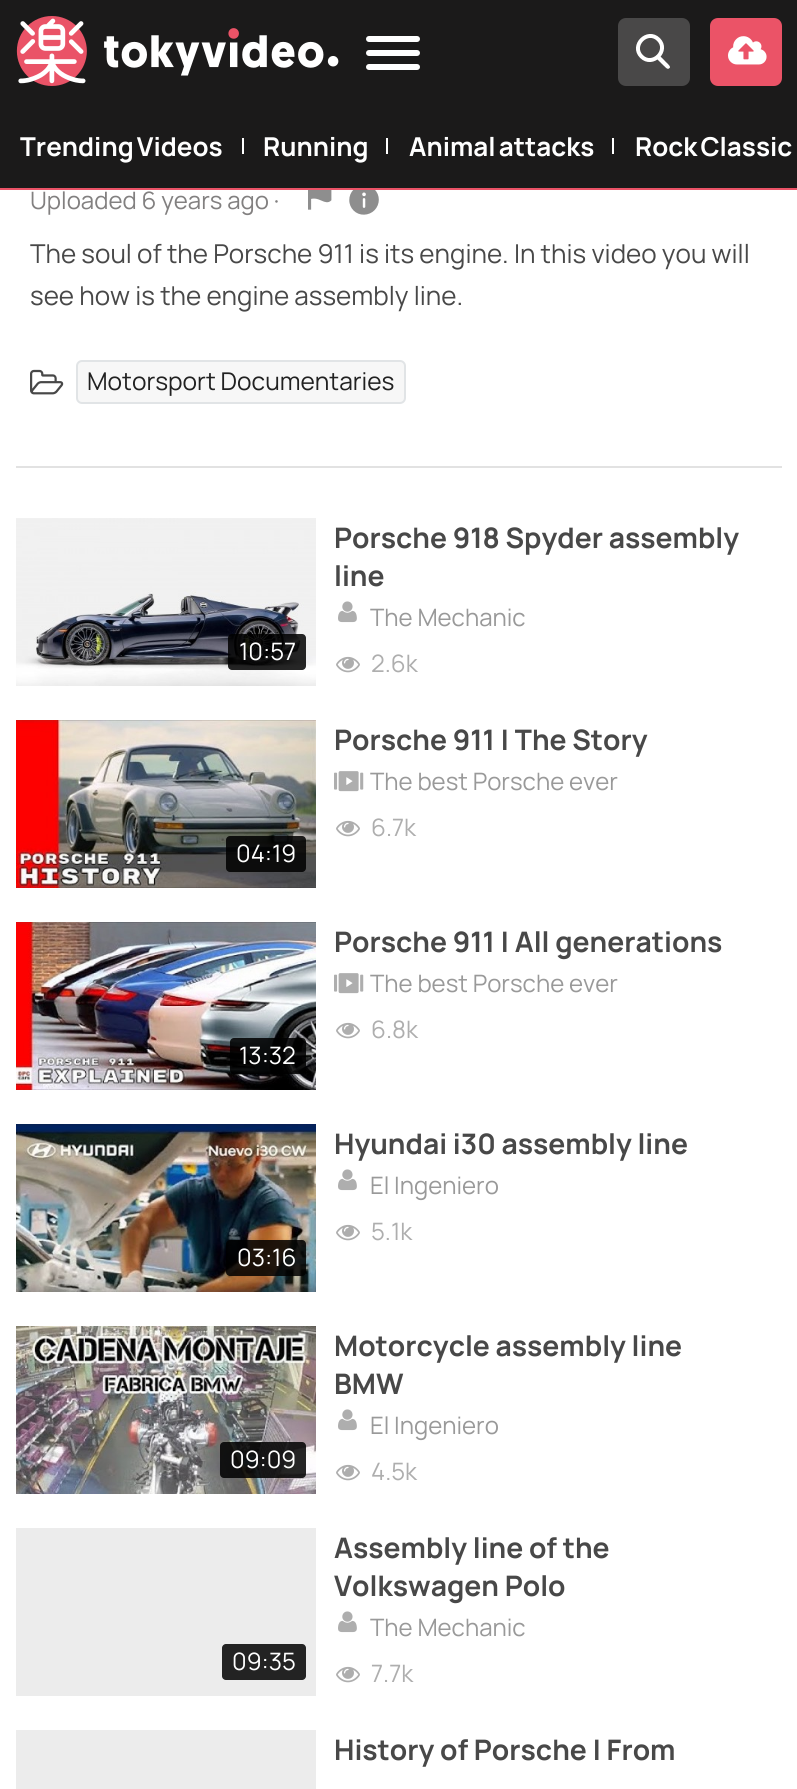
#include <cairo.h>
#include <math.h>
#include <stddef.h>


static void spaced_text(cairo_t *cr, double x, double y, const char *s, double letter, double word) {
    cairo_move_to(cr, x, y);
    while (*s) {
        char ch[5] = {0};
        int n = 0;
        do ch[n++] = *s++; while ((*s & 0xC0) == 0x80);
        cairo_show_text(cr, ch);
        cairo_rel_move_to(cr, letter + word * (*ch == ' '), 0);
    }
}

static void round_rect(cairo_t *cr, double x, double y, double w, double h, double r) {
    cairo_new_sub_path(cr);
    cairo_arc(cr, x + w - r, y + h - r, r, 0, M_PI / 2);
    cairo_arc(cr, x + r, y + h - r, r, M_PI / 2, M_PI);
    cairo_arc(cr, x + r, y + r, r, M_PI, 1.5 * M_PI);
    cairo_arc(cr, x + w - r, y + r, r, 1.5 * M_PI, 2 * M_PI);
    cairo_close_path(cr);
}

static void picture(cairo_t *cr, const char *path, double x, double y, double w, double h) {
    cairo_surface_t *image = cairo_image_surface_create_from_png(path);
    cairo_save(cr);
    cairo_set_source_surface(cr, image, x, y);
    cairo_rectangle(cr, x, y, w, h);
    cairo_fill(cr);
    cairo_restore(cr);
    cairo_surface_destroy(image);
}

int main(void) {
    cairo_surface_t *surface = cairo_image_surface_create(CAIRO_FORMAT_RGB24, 797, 1789);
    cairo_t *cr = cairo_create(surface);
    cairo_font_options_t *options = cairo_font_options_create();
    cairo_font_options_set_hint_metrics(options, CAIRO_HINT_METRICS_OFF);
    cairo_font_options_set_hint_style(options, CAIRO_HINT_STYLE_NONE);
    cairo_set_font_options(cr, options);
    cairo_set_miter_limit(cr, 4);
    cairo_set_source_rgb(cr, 1, 1, 1);
    cairo_paint(cr);
    cairo_set_source_rgb(cr, 0.106, 0.102, 0.102);
    cairo_rectangle(cr, 0, 0, 797, 188);
    cairo_fill(cr);
    picture(cr, "img1.png", 16, 16, 323, 70);
    cairo_set_source_rgb(cr, 1, 1, 1);
    round_rect(cr, 366, 50, 54, 6, 3);
    cairo_fill(cr);
    round_rect(cr, 366, 36, 54, 6, 3);
    cairo_fill(cr);
    round_rect(cr, 366, 64, 54, 6, 3);
    cairo_fill(cr);
    cairo_set_source_rgb(cr, 0.286, 0.282, 0.282);
    round_rect(cr, 618, 18, 72, 68, 8);
    cairo_fill(cr);
    cairo_set_source_rgb(cr, 1, 1, 1);
    cairo_new_path(cr);
    cairo_move_to(cr, 659.5, 55.5);
    cairo_line_to(cr, 664.5, 60.5);
    cairo_curve_to(cr, 665.5, 62, 670.5, 65.5, 670, 67.5);
    cairo_line_to(cr, 669, 68.5);
    cairo_curve_to(cr, 667, 70, 664.5, 66, 663, 65);
    cairo_line_to(cr, 656, 58);
    cairo_curve_to(cr, 655.5, 56, 658, 54, 659.5, 55.5);
    cairo_close_path(cr);
    cairo_fill(cr);
    cairo_new_path(cr);
    cairo_move_to(cr, 658.5, 39.5);
    cairo_curve_to(cr, 669.5, 50.5, 652.5, 67.5, 641.5, 56.5);
    cairo_curve_to(cr, 630.5, 45.5, 647.5, 28.5, 658.5, 39.5);
    cairo_close_path(cr);
    cairo_set_line_width(cr, 4);
    cairo_stroke(cr);
    cairo_set_source_rgb(cr, 0.918, 0.325, 0.404);
    round_rect(cr, 710, 18, 72, 68, 8);
    cairo_fill(cr);
    picture(cr, "img2.png", 728, 36, 39, 29);
    cairo_rectangle(cr, 0, 188, 797, 2);
    cairo_fill(cr);
    cairo_select_font_face(cr, "Manrope", CAIRO_FONT_SLANT_NORMAL, CAIRO_FONT_WEIGHT_BOLD);
    cairo_set_font_size(cr, 26);
    cairo_set_source_rgb(cr, 1, 1, 1);
    spaced_text(cr, 20, 156, "Trending Videos", 0, -2);
    cairo_rectangle(cr, 242, 138, 2, 16);
    cairo_fill(cr);
    cairo_move_to(cr, 263, 156);
    cairo_show_text(cr, "Running");
    cairo_rectangle(cr, 386, 138, 2, 16);
    cairo_fill(cr);
    spaced_text(cr, 409, 156, "Animal attacks", 0, -2);
    cairo_rectangle(cr, 612, 138, 2, 16);
    cairo_fill(cr);
    spaced_text(cr, 635, 156, "Rock Classic", 0, -2);
    cairo_select_font_face(cr, "Manrope", CAIRO_FONT_SLANT_NORMAL, CAIRO_FONT_WEIGHT_NORMAL);
    cairo_set_font_size(cr, 24);
    cairo_set_source_rgb(cr, 0.51, 0.502, 0.502);
    cairo_move_to(cr, 30, 209);
    cairo_show_text(cr, "Uploaded 6 years ago ·");
    picture(cr, "img3.png", 308, 190, 24, 20);
    picture(cr, "img4.png", 349, 190, 30, 25);
    cairo_set_font_size(cr, 26);
    cairo_set_source_rgb(cr, 0.282, 0.282, 0.282);
    cairo_move_to(cr, 30, 263);
    cairo_show_text(cr, "The soul of the Porsche 911 is its engine. In this video you will");
    cairo_move_to(cr, 30, 305);
    cairo_show_text(cr, "see how is the engine assembly line.");
    picture(cr, "img5.png", 30, 369, 34, 26);
    cairo_set_source_rgb(cr, 0.965, 0.965, 0.965);
    round_rect(cr, 77, 361, 328, 42, 5);
    cairo_fill_preserve(cr);
    cairo_set_source_rgb(cr, 0.882, 0.894, 0.902);
    cairo_set_line_width(cr, 2);
    cairo_stroke(cr);
    cairo_set_font_size(cr, 24.5);
    cairo_set_source_rgb(cr, 0.129, 0.129, 0.129);
    cairo_move_to(cr, 87, 390);
    cairo_show_text(cr, "Motorsport Documentaries");
    cairo_set_source_rgb(cr, 0.886, 0.886, 0.886);
    cairo_rectangle(cr, 16, 466, 766, 2);
    cairo_fill(cr);
    picture(cr, "img6.png", 16, 518, 300, 168);
    cairo_set_source_rgba(cr, 0, 0, 0, 0.85);
    round_rect(cr, 228, 634, 78, 36, 4);
    cairo_fill(cr);
    cairo_set_font_size(cr, 24);
    cairo_set_source_rgb(cr, 1, 1, 1);
    cairo_move_to(cr, 239, 660);
    cairo_show_text(cr, "10:57");
    cairo_select_font_face(cr, "Manrope", CAIRO_FONT_SLANT_NORMAL, CAIRO_FONT_WEIGHT_BOLD);
    cairo_set_font_size(cr, 28.25);
    cairo_set_source_rgb(cr, 0.282, 0.282, 0.282);
    cairo_move_to(cr, 334, 548);
    cairo_show_text(cr, "Porsche 918 Spyder assembly");
    cairo_move_to(cr, 334, 586);
    cairo_show_text(cr, "line");
    picture(cr, "img7.png", 338, 601, 19, 22);
    cairo_select_font_face(cr, "Manrope", CAIRO_FONT_SLANT_NORMAL, CAIRO_FONT_WEIGHT_NORMAL);
    cairo_set_font_size(cr, 24);
    cairo_set_source_rgb(cr, 0.6, 0.6, 0.6);
    cairo_move_to(cr, 370, 626);
    cairo_show_text(cr, "The Mechanic");
    picture(cr, "img8.png", 336, 656, 24, 17);
    cairo_set_source_rgb(cr, 0.682, 0.682, 0.682);
    cairo_move_to(cr, 371, 672);
    cairo_show_text(cr, "2.6k");
    cairo_select_font_face(cr, "Manrope", CAIRO_FONT_SLANT_NORMAL, CAIRO_FONT_WEIGHT_BOLD);
    cairo_set_font_size(cr, 28.25);
    cairo_set_source_rgb(cr, 0.282, 0.282, 0.282);
    cairo_move_to(cr, 334, 750);
    cairo_show_text(cr, "Porsche 911 | The Story");
    picture(cr, "img9.png", 334, 771, 30, 21);
    cairo_select_font_face(cr, "Manrope", CAIRO_FONT_SLANT_NORMAL, CAIRO_FONT_WEIGHT_NORMAL);
    cairo_set_font_size(cr, 24);
    cairo_set_source_rgb(cr, 0.6, 0.6, 0.6);
    cairo_move_to(cr, 370, 790);
    cairo_show_text(cr, "The best Porsche ever");
    picture(cr, "img8.png", 336, 820, 24, 17);
    cairo_set_source_rgb(cr, 0.682, 0.682, 0.682);
    cairo_move_to(cr, 371, 836);
    cairo_show_text(cr, "6.7k");
    picture(cr, "img10.png", 16, 720, 300, 168);
    cairo_set_source_rgba(cr, 0, 0, 0, 0.85);
    round_rect(cr, 226, 836, 80, 36, 4);
    cairo_fill(cr);
    cairo_set_source_rgb(cr, 1, 1, 1);
    cairo_move_to(cr, 236, 862);
    cairo_show_text(cr, "04:19");
    cairo_select_font_face(cr, "Manrope", CAIRO_FONT_SLANT_NORMAL, CAIRO_FONT_WEIGHT_BOLD);
    cairo_set_font_size(cr, 28.25);
    cairo_set_source_rgb(cr, 0.282, 0.282, 0.282);
    cairo_move_to(cr, 334, 952);
    cairo_show_text(cr, "Porsche 911 | All generations");
    picture(cr, "img9.png", 334, 973, 30, 21);
    cairo_select_font_face(cr, "Manrope", CAIRO_FONT_SLANT_NORMAL, CAIRO_FONT_WEIGHT_NORMAL);
    cairo_set_font_size(cr, 24);
    cairo_set_source_rgb(cr, 0.6, 0.6, 0.6);
    cairo_move_to(cr, 370, 992);
    cairo_show_text(cr, "The best Porsche ever");
    picture(cr, "img8.png", 336, 1022, 24, 17);
    cairo_set_source_rgb(cr, 0.682, 0.682, 0.682);
    cairo_move_to(cr, 371, 1038);
    cairo_show_text(cr, "6.8k");
    picture(cr, "img11.png", 16, 922, 300, 168);
    cairo_set_source_rgba(cr, 0, 0, 0, 0.85);
    round_rect(cr, 230, 1038, 76, 36, 4);
    cairo_fill(cr);
    cairo_set_source_rgb(cr, 1, 1, 1);
    cairo_move_to(cr, 239, 1064);
    cairo_show_text(cr, "13:32");
    cairo_select_font_face(cr, "Manrope", CAIRO_FONT_SLANT_NORMAL, CAIRO_FONT_WEIGHT_BOLD);
    cairo_set_font_size(cr, 28.25);
    cairo_set_source_rgb(cr, 0.282, 0.282, 0.282);
    cairo_move_to(cr, 334, 1154);
    cairo_show_text(cr, "Hyundai i30 assembly line");
    picture(cr, "img7.png", 338, 1169, 19, 22);
    cairo_select_font_face(cr, "Manrope", CAIRO_FONT_SLANT_NORMAL, CAIRO_FONT_WEIGHT_NORMAL);
    cairo_set_font_size(cr, 24);
    cairo_set_source_rgb(cr, 0.6, 0.6, 0.6);
    cairo_move_to(cr, 370, 1194);
    cairo_show_text(cr, "El Ingeniero");
    picture(cr, "img8.png", 336, 1224, 24, 17);
    cairo_set_source_rgb(cr, 0.682, 0.682, 0.682);
    cairo_move_to(cr, 371, 1240);
    cairo_show_text(cr, "5.1k");
    picture(cr, "img12.png", 16, 1124, 300, 168);
    cairo_set_source_rgba(cr, 0, 0, 0, 0.85);
    round_rect(cr, 226, 1240, 80, 36, 4);
    cairo_fill(cr);
    cairo_set_source_rgb(cr, 1, 1, 1);
    cairo_move_to(cr, 237, 1266);
    cairo_show_text(cr, "03:16");
    picture(cr, "img13.png", 16, 1326, 300, 168);
    cairo_set_source_rgba(cr, 0, 0, 0, 0.85);
    round_rect(cr, 220, 1442, 86, 36, 4);
    cairo_fill(cr);
    cairo_set_source_rgb(cr, 1, 1, 1);
    cairo_move_to(cr, 230, 1468);
    cairo_show_text(cr, "09:09");
    cairo_select_font_face(cr, "Manrope", CAIRO_FONT_SLANT_NORMAL, CAIRO_FONT_WEIGHT_BOLD);
    cairo_set_font_size(cr, 28.25);
    cairo_set_source_rgb(cr, 0.282, 0.282, 0.282);
    cairo_move_to(cr, 334, 1356);
    cairo_show_text(cr, "Motorcycle assembly line");
    cairo_move_to(cr, 334, 1394);
    cairo_show_text(cr, "BMW");
    picture(cr, "img7.png", 338, 1409, 19, 22);
    cairo_select_font_face(cr, "Manrope", CAIRO_FONT_SLANT_NORMAL, CAIRO_FONT_WEIGHT_NORMAL);
    cairo_set_font_size(cr, 24);
    cairo_set_source_rgb(cr, 0.6, 0.6, 0.6);
    cairo_move_to(cr, 370, 1434);
    cairo_show_text(cr, "El Ingeniero");
    picture(cr, "img8.png", 336, 1464, 24, 17);
    cairo_set_source_rgb(cr, 0.682, 0.682, 0.682);
    cairo_move_to(cr, 371, 1480);
    cairo_show_text(cr, "4.5k");
    cairo_set_source_rgb(cr, 0.922, 0.925, 0.925);
    cairo_rectangle(cr, 16, 1528, 300, 168);
    cairo_fill(cr);
    cairo_set_source_rgb(cr, 0.137, 0.137, 0.137);
    round_rect(cr, 222, 1644, 84, 36, 4);
    cairo_fill(cr);
    cairo_set_source_rgb(cr, 1, 1, 1);
    cairo_move_to(cr, 232, 1670);
    cairo_show_text(cr, "09:35");
    cairo_select_font_face(cr, "Manrope", CAIRO_FONT_SLANT_NORMAL, CAIRO_FONT_WEIGHT_BOLD);
    cairo_set_font_size(cr, 28.25);
    cairo_set_source_rgb(cr, 0.282, 0.282, 0.282);
    cairo_move_to(cr, 334, 1558);
    cairo_show_text(cr, "Assembly line of the");
    cairo_move_to(cr, 334, 1596);
    cairo_show_text(cr, "Volkswagen Polo");
    picture(cr, "img7.png", 338, 1611, 19, 22);
    cairo_select_font_face(cr, "Manrope", CAIRO_FONT_SLANT_NORMAL, CAIRO_FONT_WEIGHT_NORMAL);
    cairo_set_font_size(cr, 24);
    cairo_set_source_rgb(cr, 0.6, 0.6, 0.6);
    cairo_move_to(cr, 370, 1636);
    cairo_show_text(cr, "The Mechanic");
    picture(cr, "img8.png", 336, 1666, 24, 17);
    cairo_set_source_rgb(cr, 0.682, 0.682, 0.682);
    cairo_move_to(cr, 371, 1682);
    cairo_show_text(cr, "7.7k");
    cairo_set_source_rgb(cr, 0.922, 0.925, 0.925);
    cairo_rectangle(cr, 16, 1730, 300, 59);
    cairo_fill(cr);
    cairo_select_font_face(cr, "Manrope", CAIRO_FONT_SLANT_NORMAL, CAIRO_FONT_WEIGHT_BOLD);
    cairo_set_font_size(cr, 28.25);
    cairo_set_source_rgb(cr, 0.282, 0.282, 0.282);
    cairo_move_to(cr, 334, 1760);
    cairo_show_text(cr, "History of Porsche | From");
    cairo_surface_write_to_png(surface, "page.png");
    cairo_font_options_destroy(options);
    cairo_destroy(cr);
    cairo_surface_destroy(surface);
    return 0;
}
